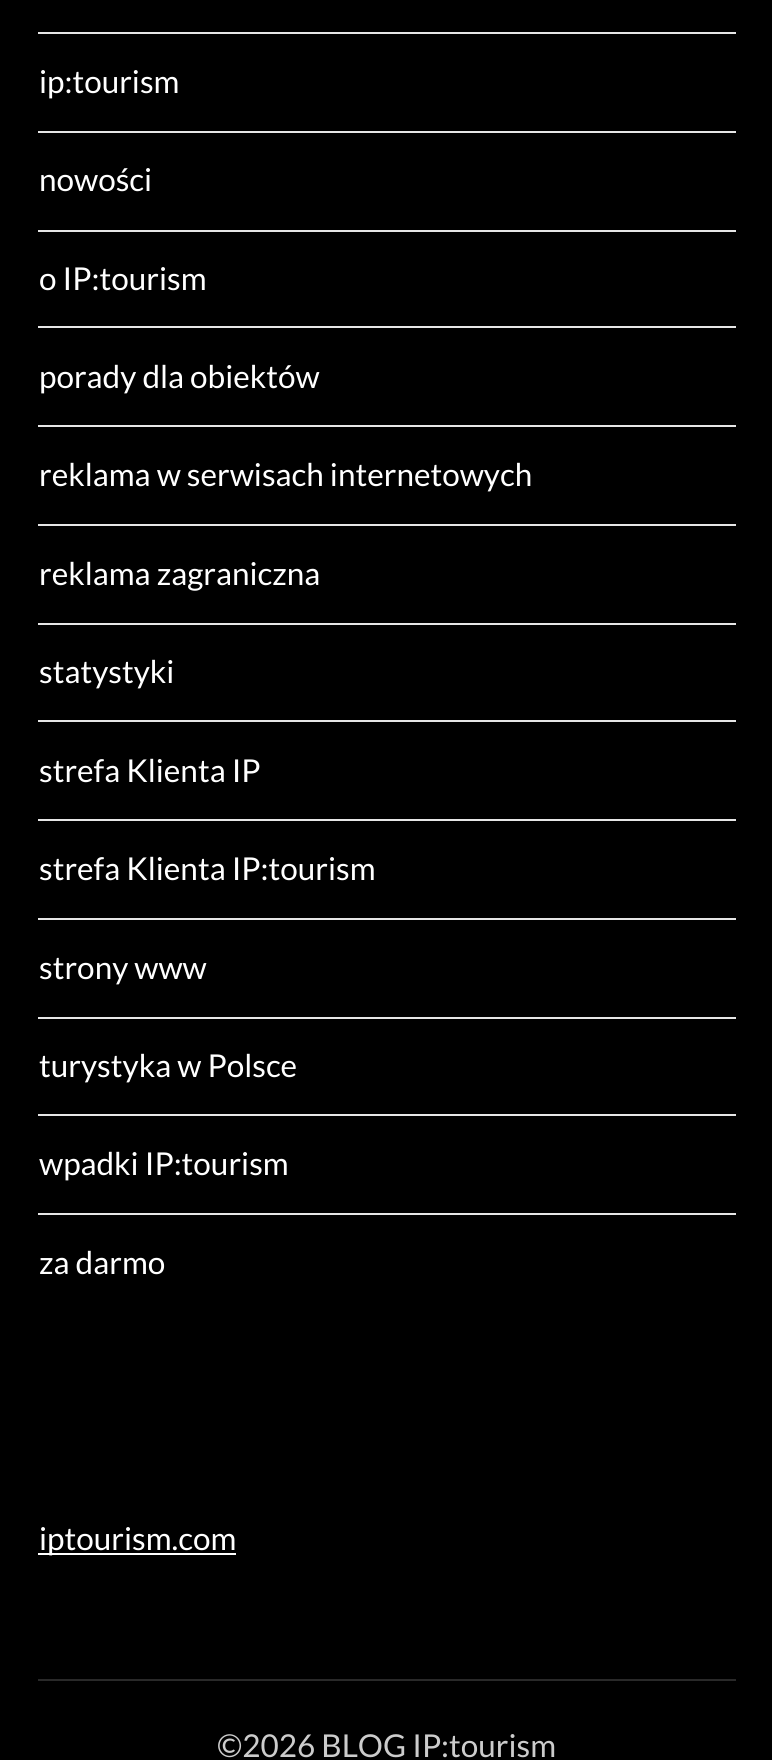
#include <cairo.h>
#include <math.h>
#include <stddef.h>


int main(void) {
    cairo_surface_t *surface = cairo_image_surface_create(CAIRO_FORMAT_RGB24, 772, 1760);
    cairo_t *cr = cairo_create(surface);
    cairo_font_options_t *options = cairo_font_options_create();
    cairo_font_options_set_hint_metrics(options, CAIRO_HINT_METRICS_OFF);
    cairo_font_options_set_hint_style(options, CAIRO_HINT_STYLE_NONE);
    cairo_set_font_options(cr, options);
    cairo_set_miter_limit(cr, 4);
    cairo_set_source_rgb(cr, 0, 0, 0);
    cairo_paint(cr);
    cairo_set_source_rgb(cr, 0.902, 0.902, 0.902);
    cairo_rectangle(cr, 38, 32, 698, 2);
    cairo_fill(cr);
    cairo_rectangle(cr, 38, 131, 698, 2);
    cairo_fill(cr);
    cairo_select_font_face(cr, "Lato", CAIRO_FONT_SLANT_NORMAL, CAIRO_FONT_WEIGHT_NORMAL);
    cairo_set_font_size(cr, 31.5);
    cairo_set_source_rgb(cr, 1, 1, 1);
    cairo_move_to(cr, 39, 93);
    cairo_show_text(cr, "ip:tourism");
    cairo_set_source_rgb(cr, 0.902, 0.902, 0.902);
    cairo_rectangle(cr, 38, 230, 698, 2);
    cairo_fill(cr);
    cairo_set_source_rgb(cr, 1, 1, 1);
    cairo_move_to(cr, 39, 191);
    cairo_show_text(cr, "nowości");
    cairo_set_source_rgb(cr, 0.902, 0.902, 0.902);
    cairo_rectangle(cr, 38, 326, 698, 2);
    cairo_fill(cr);
    cairo_set_source_rgb(cr, 1, 1, 1);
    cairo_move_to(cr, 39, 290);
    cairo_show_text(cr, "o IP:tourism");
    cairo_set_source_rgb(cr, 0.902, 0.902, 0.902);
    cairo_rectangle(cr, 38, 425, 698, 2);
    cairo_fill(cr);
    cairo_set_source_rgb(cr, 1, 1, 1);
    cairo_move_to(cr, 39, 388);
    cairo_show_text(cr, "porady dla obiektów");
    cairo_set_source_rgb(cr, 0.902, 0.902, 0.902);
    cairo_rectangle(cr, 38, 524, 698, 2);
    cairo_fill(cr);
    cairo_set_source_rgb(cr, 1, 1, 1);
    cairo_move_to(cr, 39, 486);
    cairo_show_text(cr, "reklama w serwisach internetowych");
    cairo_set_source_rgb(cr, 0.902, 0.902, 0.902);
    cairo_rectangle(cr, 38, 623, 698, 2);
    cairo_fill(cr);
    cairo_set_source_rgb(cr, 1, 1, 1);
    cairo_move_to(cr, 39, 585);
    cairo_show_text(cr, "reklama zagraniczna");
    cairo_set_source_rgb(cr, 0.902, 0.902, 0.902);
    cairo_rectangle(cr, 38, 720, 698, 2);
    cairo_fill(cr);
    cairo_set_source_rgb(cr, 1, 1, 1);
    cairo_move_to(cr, 39, 683);
    cairo_show_text(cr, "statystyki");
    cairo_set_source_rgb(cr, 0.902, 0.902, 0.902);
    cairo_rectangle(cr, 38, 819, 698, 2);
    cairo_fill(cr);
    cairo_set_source_rgb(cr, 1, 1, 1);
    cairo_move_to(cr, 39, 782);
    cairo_show_text(cr, "strefa Klienta IP");
    cairo_set_source_rgb(cr, 0.902, 0.902, 0.902);
    cairo_rectangle(cr, 38, 918, 698, 2);
    cairo_fill(cr);
    cairo_set_source_rgb(cr, 1, 1, 1);
    cairo_move_to(cr, 39, 880);
    cairo_show_text(cr, "strefa Klienta IP:tourism");
    cairo_set_source_rgb(cr, 0.902, 0.902, 0.902);
    cairo_rectangle(cr, 38, 1017, 698, 2);
    cairo_fill(cr);
    cairo_set_source_rgb(cr, 1, 1, 1);
    cairo_move_to(cr, 39, 979);
    cairo_show_text(cr, "strony www");
    cairo_set_source_rgb(cr, 0.902, 0.902, 0.902);
    cairo_rectangle(cr, 38, 1114, 698, 2);
    cairo_fill(cr);
    cairo_set_source_rgb(cr, 1, 1, 1);
    cairo_move_to(cr, 39, 1077);
    cairo_show_text(cr, "turystyka w Polsce");
    cairo_set_source_rgb(cr, 0.902, 0.902, 0.902);
    cairo_rectangle(cr, 38, 1213, 698, 2);
    cairo_fill(cr);
    cairo_set_source_rgb(cr, 1, 1, 1);
    cairo_move_to(cr, 39, 1175);
    cairo_show_text(cr, "wpadki IP:tourism");
    cairo_move_to(cr, 39, 1274);
    cairo_show_text(cr, "za darmo");
    cairo_rectangle(cr, 38, 1553, 198, 2);
    cairo_fill(cr);
    cairo_move_to(cr, 39, 1550);
    cairo_show_text(cr, "iptourism.com");
    cairo_set_source_rgb(cr, 0.161, 0.161, 0.161);
    cairo_rectangle(cr, 38, 1679, 698, 2);
    cairo_fill(cr);
    cairo_set_source_rgb(cr, 0.8, 0.8, 0.8);
    cairo_move_to(cr, 217, 1757);
    cairo_show_text(cr, "©2026 BLOG IP:tourism");
    cairo_surface_write_to_png(surface, "page.png");
    cairo_font_options_destroy(options);
    cairo_destroy(cr);
    cairo_surface_destroy(surface);
    return 0;
}
